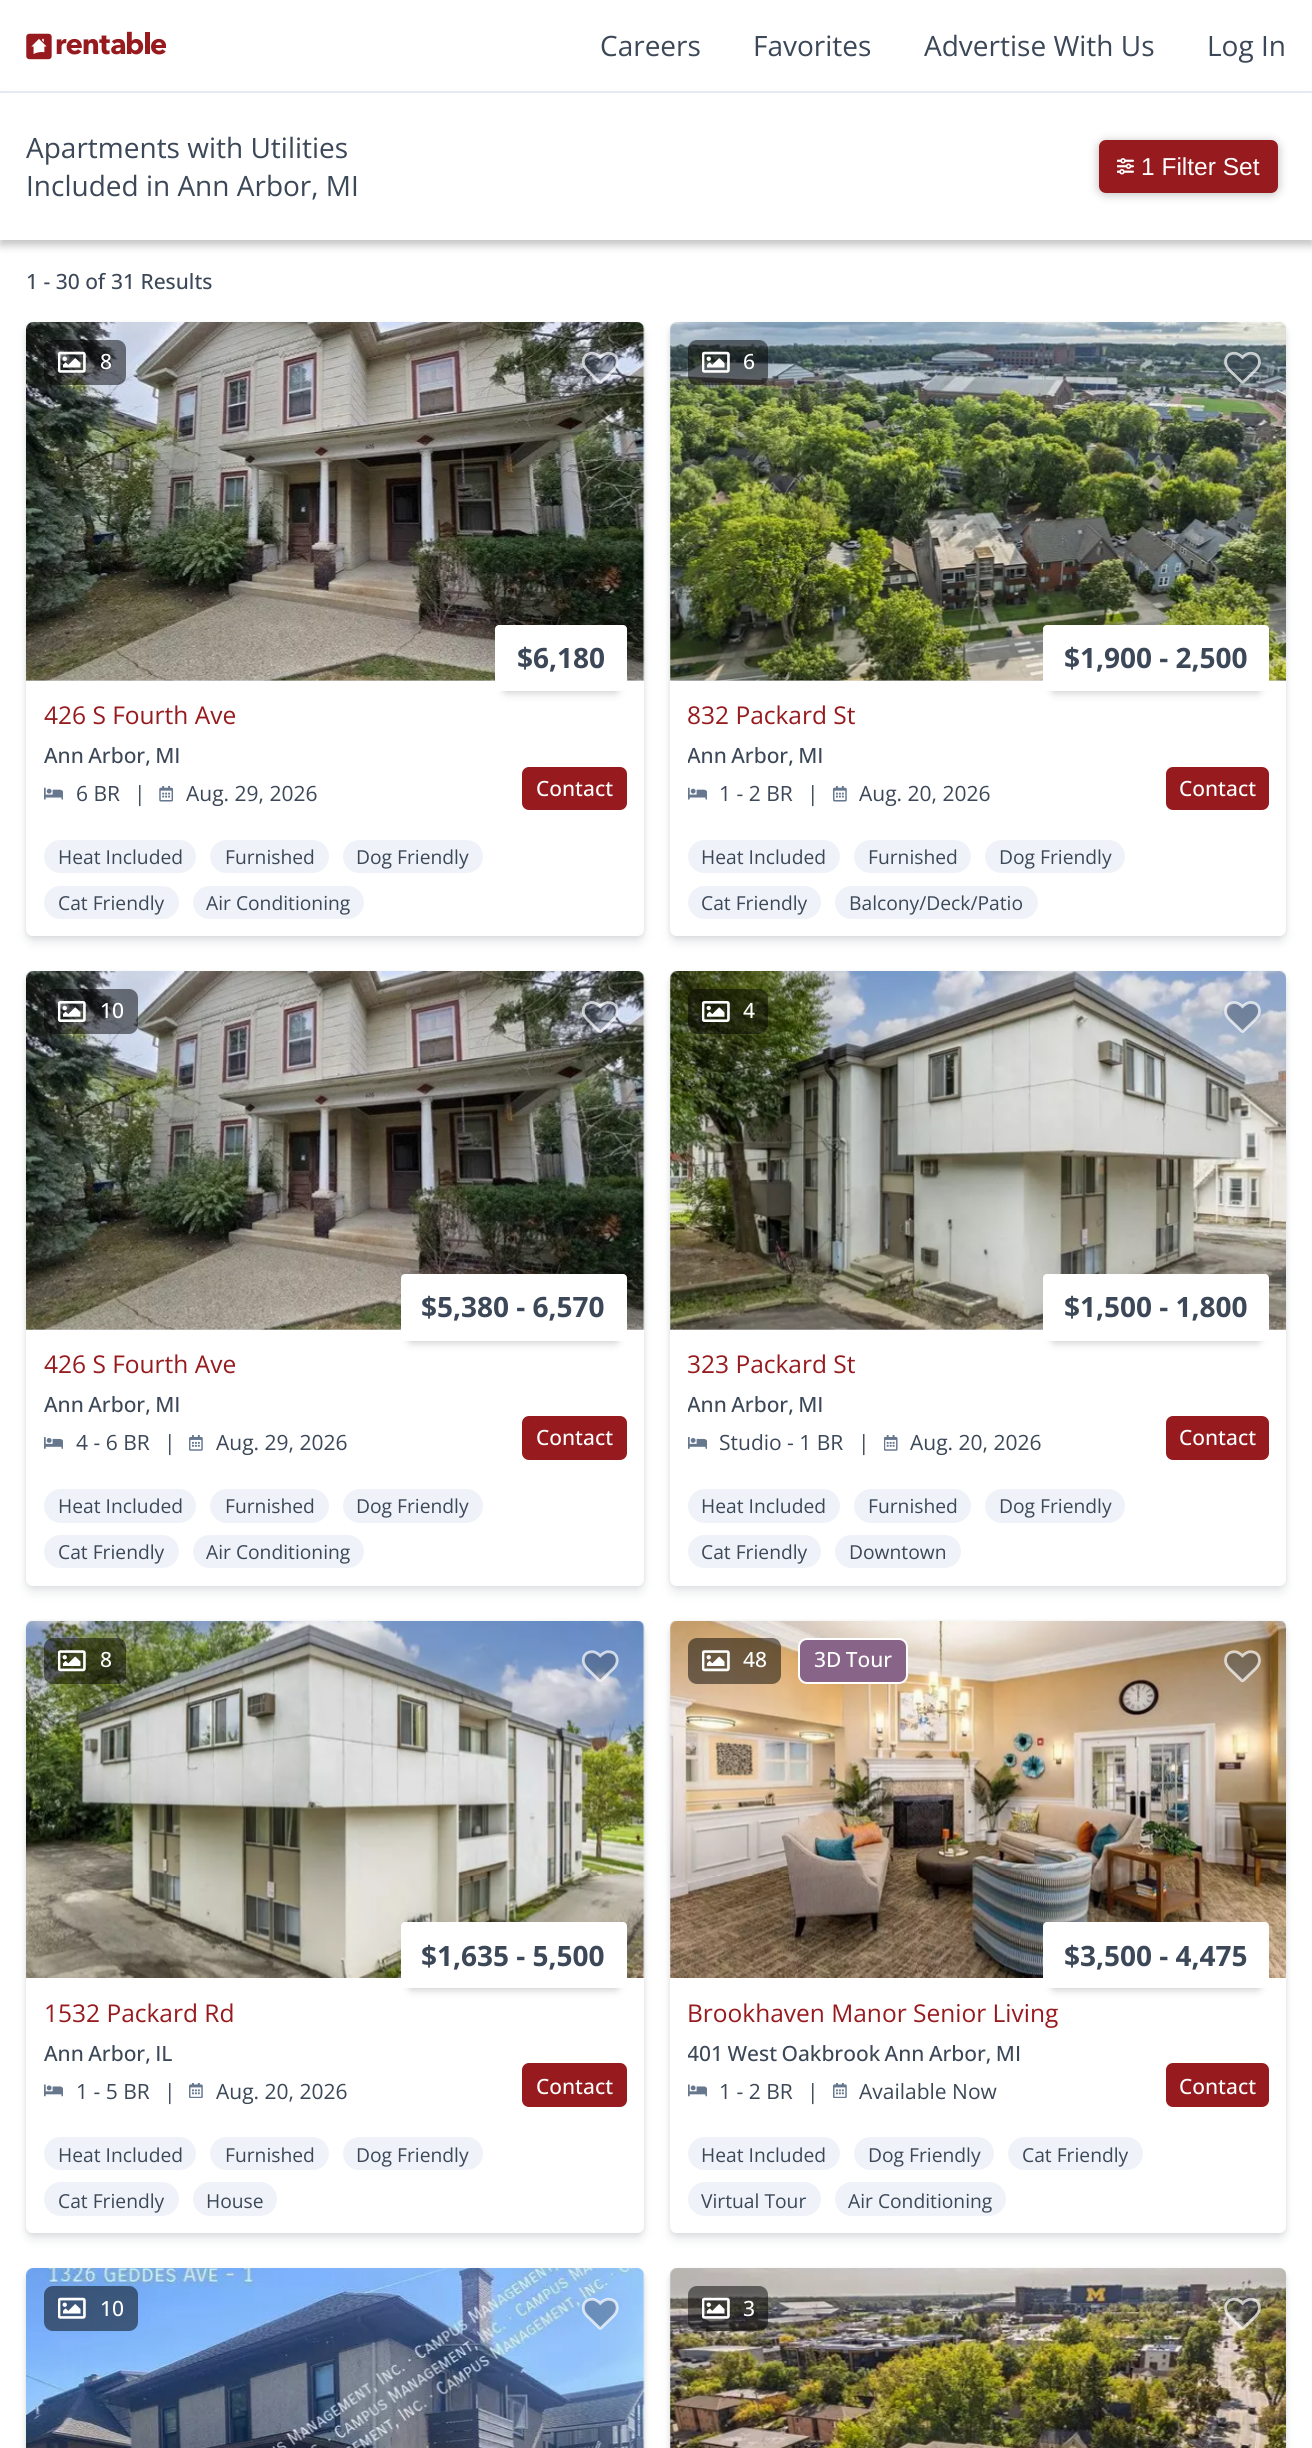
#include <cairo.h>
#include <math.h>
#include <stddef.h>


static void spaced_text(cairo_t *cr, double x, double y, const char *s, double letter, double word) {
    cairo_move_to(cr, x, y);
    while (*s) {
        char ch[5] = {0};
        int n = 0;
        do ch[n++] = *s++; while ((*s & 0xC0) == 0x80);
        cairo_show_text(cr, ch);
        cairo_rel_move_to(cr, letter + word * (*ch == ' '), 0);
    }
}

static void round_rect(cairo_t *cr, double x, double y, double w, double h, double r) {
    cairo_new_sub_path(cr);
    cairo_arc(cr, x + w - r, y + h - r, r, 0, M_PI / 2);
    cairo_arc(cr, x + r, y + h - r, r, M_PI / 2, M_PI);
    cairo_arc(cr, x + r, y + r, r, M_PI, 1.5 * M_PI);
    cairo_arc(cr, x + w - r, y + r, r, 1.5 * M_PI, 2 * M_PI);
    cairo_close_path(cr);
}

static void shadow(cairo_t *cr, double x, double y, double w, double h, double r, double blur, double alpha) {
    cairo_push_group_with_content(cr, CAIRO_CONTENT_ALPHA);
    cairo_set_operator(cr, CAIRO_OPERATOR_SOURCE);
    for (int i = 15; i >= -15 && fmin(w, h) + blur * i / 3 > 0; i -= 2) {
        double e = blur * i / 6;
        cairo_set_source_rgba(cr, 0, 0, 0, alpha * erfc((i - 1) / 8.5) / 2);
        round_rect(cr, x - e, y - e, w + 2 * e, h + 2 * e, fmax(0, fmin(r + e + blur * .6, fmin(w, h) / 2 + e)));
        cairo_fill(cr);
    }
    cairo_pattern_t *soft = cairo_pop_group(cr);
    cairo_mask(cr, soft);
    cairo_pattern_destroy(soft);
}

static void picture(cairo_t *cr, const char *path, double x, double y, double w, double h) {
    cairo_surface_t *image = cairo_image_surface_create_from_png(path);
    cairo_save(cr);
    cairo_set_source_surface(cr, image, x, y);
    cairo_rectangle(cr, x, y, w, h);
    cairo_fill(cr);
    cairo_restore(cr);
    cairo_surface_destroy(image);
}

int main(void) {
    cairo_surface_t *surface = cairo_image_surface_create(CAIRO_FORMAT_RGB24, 1312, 2448);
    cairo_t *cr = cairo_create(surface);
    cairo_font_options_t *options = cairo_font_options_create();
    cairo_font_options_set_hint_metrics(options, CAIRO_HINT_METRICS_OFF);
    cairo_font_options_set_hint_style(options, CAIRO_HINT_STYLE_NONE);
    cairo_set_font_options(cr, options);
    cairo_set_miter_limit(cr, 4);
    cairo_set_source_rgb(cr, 1, 1, 1);
    cairo_paint(cr);
    cairo_set_source_rgb(cr, 0, 0, 0);
    shadow(cr, 0, 98, 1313, 147, 0, 4.5, 0.25);
    cairo_set_source_rgb(cr, 1, 1, 1);
    cairo_rectangle(cr, 5, 90, 1303, 1);
    cairo_fill(cr);
    cairo_set_source_rgb(cr, 0.898, 0.914, 0.949);
    cairo_rectangle(cr, 0, 91, 1312, 2);
    cairo_fill(cr);
    picture(cr, "img1.png", 26, 31, 140, 29);
    cairo_select_font_face(cr, "Open Sans", CAIRO_FONT_SLANT_NORMAL, CAIRO_FONT_WEIGHT_NORMAL);
    cairo_set_font_size(cr, 28);
    cairo_set_source_rgb(cr, 0.235, 0.282, 0.345);
    cairo_move_to(cr, 600, 56);
    cairo_show_text(cr, "Careers");
    cairo_move_to(cr, 753, 56);
    cairo_show_text(cr, "Favorites");
    cairo_move_to(cr, 924, 56);
    cairo_show_text(cr, "Advertise With Us");
    cairo_move_to(cr, 1207, 56);
    cairo_show_text(cr, "Log In");
    cairo_set_source_rgb(cr, 1, 1, 1);
    cairo_rectangle(cr, 0, 93, 1312, 147);
    cairo_fill(cr);
    cairo_set_source_rgb(cr, 0.235, 0.282, 0.345);
    cairo_move_to(cr, 26, 158);
    cairo_show_text(cr, "Apartments with Utilities");
    cairo_move_to(cr, 26, 196);
    cairo_show_text(cr, "Included in Ann Arbor, MI");
    cairo_set_source_rgb(cr, 0, 0, 0);
    shadow(cr, 1099, 142, 179, 52, 7, 5, 0.28);
    cairo_set_source_rgb(cr, 0.592, 0.106, 0.118);
    round_rect(cr, 1099, 140, 179, 53, 7);
    cairo_fill(cr);
    picture(cr, "img2.png", 1117, 158, 17, 17);
    cairo_select_font_face(cr, "Liberation Sans", CAIRO_FONT_SLANT_NORMAL, CAIRO_FONT_WEIGHT_NORMAL);
    cairo_set_font_size(cr, 24.5);
    cairo_set_source_rgb(cr, 1, 1, 1);
    cairo_move_to(cr, 1141, 175);
    cairo_show_text(cr, "1 Filter Set");
    cairo_select_font_face(cr, "Open Sans Medium", CAIRO_FONT_SLANT_NORMAL, CAIRO_FONT_WEIGHT_NORMAL);
    cairo_set_font_size(cr, 21);
    cairo_set_source_rgb(cr, 0.235, 0.282, 0.345);
    cairo_move_to(cr, 26, 289);
    cairo_show_text(cr, "1 - 30 of");
    cairo_move_to(cr, 111, 289);
    cairo_show_text(cr, "31 Results");
    cairo_save(cr);
    cairo_set_fill_rule(cr, CAIRO_FILL_RULE_EVEN_ODD);
    cairo_new_path(cr);
    cairo_move_to(cr, 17, 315);
    cairo_line_to(cr, 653, 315);
    cairo_line_to(cr, 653, 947);
    cairo_line_to(cr, 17, 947);
    cairo_close_path(cr);
    cairo_move_to(cr, 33, 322);
    cairo_line_to(cr, 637, 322);
    cairo_curve_to(cr, 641, 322, 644, 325, 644, 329);
    cairo_line_to(cr, 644, 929);
    cairo_curve_to(cr, 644, 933, 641, 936, 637, 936);
    cairo_line_to(cr, 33, 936);
    cairo_curve_to(cr, 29, 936, 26, 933, 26, 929);
    cairo_line_to(cr, 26, 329);
    cairo_curve_to(cr, 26, 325, 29, 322, 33, 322);
    cairo_close_path(cr);
    cairo_clip(cr);
    cairo_set_source_rgb(cr, 0, 0, 0);
    shadow(cr, 26, 324, 618, 614, 7, 2.5, 0.08);
    cairo_restore(cr);
    cairo_save(cr);
    cairo_set_fill_rule(cr, CAIRO_FILL_RULE_EVEN_ODD);
    cairo_new_path(cr);
    cairo_move_to(cr, 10, 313);
    cairo_line_to(cr, 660, 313);
    cairo_line_to(cr, 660, 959);
    cairo_line_to(cr, 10, 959);
    cairo_close_path(cr);
    cairo_move_to(cr, 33, 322);
    cairo_line_to(cr, 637, 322);
    cairo_curve_to(cr, 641, 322, 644, 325, 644, 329);
    cairo_line_to(cr, 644, 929);
    cairo_curve_to(cr, 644, 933, 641, 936, 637, 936);
    cairo_line_to(cr, 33, 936);
    cairo_curve_to(cr, 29, 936, 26, 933, 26, 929);
    cairo_line_to(cr, 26, 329);
    cairo_curve_to(cr, 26, 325, 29, 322, 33, 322);
    cairo_close_path(cr);
    cairo_clip(cr);
    cairo_set_source_rgb(cr, 0.235, 0.282, 0.345);
    shadow(cr, 26, 329, 618, 614, 7, 5, 0.11);
    cairo_restore(cr);
    cairo_set_source_rgb(cr, 0.898, 0.914, 0.949);
    cairo_new_path(cr);
    cairo_move_to(cr, 33, 322);
    cairo_line_to(cr, 637, 322);
    cairo_curve_to(cr, 641, 322, 644, 325, 644, 329);
    cairo_line_to(cr, 644, 681);
    cairo_line_to(cr, 26, 681);
    cairo_line_to(cr, 26, 329);
    cairo_curve_to(cr, 26, 325, 29, 322, 33, 322);
    cairo_close_path(cr);
    cairo_fill(cr);
    picture(cr, "img4.png", 26, 322, 619, 359);
    picture(cr, "img3.png", 581, 351, 38, 33);
    cairo_set_source_rgba(cr, 0, 0, 0, 0.5);
    round_rect(cr, 44, 340, 82, 45, 9);
    cairo_fill(cr);
    picture(cr, "img5.png", 58, 351, 28, 22);
    cairo_set_source_rgb(cr, 1, 1, 1);
    cairo_move_to(cr, 100, 369);
    cairo_show_text(cr, "8");
    cairo_set_source_rgb(cr, 0, 0, 0);
    shadow(cr, 506, 646, 110, 45, 0, 5, 0.28);
    cairo_set_source_rgb(cr, 1, 1, 1);
    round_rect(cr, 495, 625, 132, 66, 4);
    cairo_fill(cr);
    cairo_select_font_face(cr, "Open Sans", CAIRO_FONT_SLANT_NORMAL, CAIRO_FONT_WEIGHT_BOLD);
    cairo_set_font_size(cr, 28);
    cairo_set_source_rgb(cr, 0.235, 0.282, 0.345);
    cairo_move_to(cr, 517, 668);
    cairo_show_text(cr, "$6,180");
    cairo_select_font_face(cr, "Open Sans", CAIRO_FONT_SLANT_NORMAL, CAIRO_FONT_WEIGHT_NORMAL);
    cairo_set_font_size(cr, 24.5);
    cairo_set_source_rgb(cr, 0.592, 0.106, 0.118);
    cairo_move_to(cr, 44, 724);
    cairo_show_text(cr, "426 S Fourth Ave");
    cairo_select_font_face(cr, "Open Sans Medium", CAIRO_FONT_SLANT_NORMAL, CAIRO_FONT_WEIGHT_NORMAL);
    cairo_set_font_size(cr, 21);
    cairo_set_source_rgb(cr, 0.235, 0.282, 0.345);
    spaced_text(cr, 44, 763, "Ann Arbor, MI", 0, -1);
    picture(cr, "img6.png", 44, 787, 19, 13);
    cairo_select_font_face(cr, "Open Sans", CAIRO_FONT_SLANT_NORMAL, CAIRO_FONT_WEIGHT_NORMAL);
    cairo_move_to(cr, 76, 801);
    cairo_show_text(cr, "6 BR");
    cairo_move_to(cr, 134, 801);
    cairo_show_text(cr, "|");
    picture(cr, "img7.png", 159, 786, 14, 16);
    cairo_move_to(cr, 186, 801);
    cairo_show_text(cr, "Aug. 29, 2026");
    cairo_set_source_rgb(cr, 0.592, 0.106, 0.118);
    round_rect(cr, 522, 767, 105, 43, 7);
    cairo_fill(cr);
    cairo_select_font_face(cr, "Open Sans Medium", CAIRO_FONT_SLANT_NORMAL, CAIRO_FONT_WEIGHT_NORMAL);
    cairo_set_source_rgb(cr, 1, 1, 1);
    cairo_move_to(cr, 536, 796);
    cairo_show_text(cr, "Contact");
    cairo_set_source_rgb(cr, 0.937, 0.949, 0.969);
    round_rect(cr, 44, 840, 152, 33, 16.5);
    cairo_fill(cr);
    cairo_select_font_face(cr, "Open Sans", CAIRO_FONT_SLANT_NORMAL, CAIRO_FONT_WEIGHT_NORMAL);
    cairo_set_font_size(cr, 19.25);
    cairo_set_source_rgb(cr, 0.235, 0.282, 0.345);
    cairo_move_to(cr, 58, 864);
    cairo_show_text(cr, "Heat Included");
    cairo_set_source_rgb(cr, 0.937, 0.949, 0.969);
    round_rect(cr, 210, 840, 119, 33, 16.5);
    cairo_fill(cr);
    cairo_set_source_rgb(cr, 0.235, 0.282, 0.345);
    cairo_move_to(cr, 225, 864);
    cairo_show_text(cr, "Furnished");
    cairo_set_source_rgb(cr, 0.937, 0.949, 0.969);
    round_rect(cr, 343, 840, 140, 33, 16.5);
    cairo_fill(cr);
    cairo_set_source_rgb(cr, 0.235, 0.282, 0.345);
    cairo_move_to(cr, 356, 864);
    cairo_show_text(cr, "Dog Friendly");
    cairo_set_source_rgb(cr, 0.937, 0.949, 0.969);
    round_rect(cr, 44, 886, 135, 33, 16.5);
    cairo_fill(cr);
    cairo_set_source_rgb(cr, 0.235, 0.282, 0.345);
    cairo_move_to(cr, 58, 910);
    cairo_show_text(cr, "Cat Friendly");
    cairo_set_source_rgb(cr, 0.937, 0.949, 0.969);
    round_rect(cr, 193, 886, 171, 33, 16.5);
    cairo_fill(cr);
    cairo_set_source_rgb(cr, 0.235, 0.282, 0.345);
    cairo_move_to(cr, 206, 910);
    cairo_show_text(cr, "Air Conditioning");
    cairo_save(cr);
    cairo_set_fill_rule(cr, CAIRO_FILL_RULE_EVEN_ODD);
    cairo_new_path(cr);
    cairo_move_to(cr, 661, 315);
    cairo_line_to(cr, 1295, 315);
    cairo_line_to(cr, 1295, 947);
    cairo_line_to(cr, 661, 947);
    cairo_close_path(cr);
    cairo_move_to(cr, 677, 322);
    cairo_line_to(cr, 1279, 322);
    cairo_curve_to(cr, 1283, 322, 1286, 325, 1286, 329);
    cairo_line_to(cr, 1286, 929);
    cairo_curve_to(cr, 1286, 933, 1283, 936, 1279, 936);
    cairo_line_to(cr, 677, 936);
    cairo_curve_to(cr, 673, 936, 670, 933, 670, 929);
    cairo_line_to(cr, 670, 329);
    cairo_curve_to(cr, 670, 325, 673, 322, 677, 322);
    cairo_close_path(cr);
    cairo_clip(cr);
    cairo_set_source_rgb(cr, 0, 0, 0);
    shadow(cr, 670, 324, 616, 614, 7, 2.5, 0.08);
    cairo_restore(cr);
    cairo_save(cr);
    cairo_set_fill_rule(cr, CAIRO_FILL_RULE_EVEN_ODD);
    cairo_new_path(cr);
    cairo_move_to(cr, 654, 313);
    cairo_line_to(cr, 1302, 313);
    cairo_line_to(cr, 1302, 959);
    cairo_line_to(cr, 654, 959);
    cairo_close_path(cr);
    cairo_move_to(cr, 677, 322);
    cairo_line_to(cr, 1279, 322);
    cairo_curve_to(cr, 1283, 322, 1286, 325, 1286, 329);
    cairo_line_to(cr, 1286, 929);
    cairo_curve_to(cr, 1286, 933, 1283, 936, 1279, 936);
    cairo_line_to(cr, 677, 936);
    cairo_curve_to(cr, 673, 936, 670, 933, 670, 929);
    cairo_line_to(cr, 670, 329);
    cairo_curve_to(cr, 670, 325, 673, 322, 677, 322);
    cairo_close_path(cr);
    cairo_clip(cr);
    cairo_set_source_rgb(cr, 0.235, 0.282, 0.345);
    shadow(cr, 670, 329, 616, 614, 7, 5, 0.11);
    cairo_restore(cr);
    cairo_set_source_rgb(cr, 0.898, 0.914, 0.949);
    cairo_new_path(cr);
    cairo_move_to(cr, 677, 322);
    cairo_line_to(cr, 1279, 322);
    cairo_curve_to(cr, 1283, 322, 1286, 325, 1286, 329);
    cairo_line_to(cr, 1286, 681);
    cairo_line_to(cr, 670, 681);
    cairo_line_to(cr, 670, 329);
    cairo_curve_to(cr, 670, 325, 673, 322, 677, 322);
    cairo_close_path(cr);
    cairo_fill(cr);
    picture(cr, "img9.png", 670, 322, 616, 359);
    picture(cr, "img8.png", 1224, 351, 37, 33);
    cairo_set_source_rgba(cr, 0, 0, 0, 0.5);
    round_rect(cr, 688, 340, 80, 45, 9);
    cairo_fill(cr);
    picture(cr, "img10.png", 702, 351, 28, 22);
    cairo_select_font_face(cr, "Open Sans Medium", CAIRO_FONT_SLANT_NORMAL, CAIRO_FONT_WEIGHT_NORMAL);
    cairo_set_font_size(cr, 21);
    cairo_set_source_rgb(cr, 1, 1, 1);
    cairo_move_to(cr, 743, 369);
    cairo_show_text(cr, "6");
    cairo_set_source_rgb(cr, 0, 0, 0);
    shadow(cr, 1054, 646, 204, 45, 0, 5, 0.28);
    cairo_set_source_rgb(cr, 1, 1, 1);
    round_rect(cr, 1043, 625, 226, 66, 4);
    cairo_fill(cr);
    cairo_select_font_face(cr, "Open Sans", CAIRO_FONT_SLANT_NORMAL, CAIRO_FONT_WEIGHT_BOLD);
    cairo_set_font_size(cr, 28);
    cairo_set_source_rgb(cr, 0.235, 0.282, 0.345);
    cairo_move_to(cr, 1064, 668);
    cairo_show_text(cr, "$1,900 - 2,500");
    cairo_select_font_face(cr, "Open Sans", CAIRO_FONT_SLANT_NORMAL, CAIRO_FONT_WEIGHT_NORMAL);
    cairo_set_font_size(cr, 24.5);
    cairo_set_source_rgb(cr, 0.592, 0.106, 0.118);
    cairo_move_to(cr, 687, 724);
    cairo_show_text(cr, "832 Packard St");
    cairo_save(cr);
    cairo_rectangle(cr, 688, 740, 458, 30);
    cairo_clip(cr);
    cairo_select_font_face(cr, "Open Sans Medium", CAIRO_FONT_SLANT_NORMAL, CAIRO_FONT_WEIGHT_NORMAL);
    cairo_set_font_size(cr, 21);
    cairo_set_source_rgb(cr, 0.235, 0.282, 0.345);
    spaced_text(cr, 687, 763, "Ann Arbor, MI", 0, -1);
    cairo_restore(cr);
    picture(cr, "img6.png", 688, 787, 19, 13);
    cairo_set_font_size(cr, 21);
    cairo_set_source_rgb(cr, 0.235, 0.282, 0.345);
    cairo_move_to(cr, 719, 801);
    cairo_show_text(cr, "1 - 2 BR");
    cairo_move_to(cr, 807, 801);
    cairo_show_text(cr, "|");
    picture(cr, "img11.png", 833, 786, 14, 16);
    cairo_move_to(cr, 859, 801);
    cairo_show_text(cr, "Aug. 20, 2026");
    cairo_set_source_rgb(cr, 0.592, 0.106, 0.118);
    round_rect(cr, 1166, 767, 103, 43, 7);
    cairo_fill(cr);
    cairo_select_font_face(cr, "Open Sans Medium", CAIRO_FONT_SLANT_NORMAL, CAIRO_FONT_WEIGHT_NORMAL);
    cairo_set_source_rgb(cr, 1, 1, 1);
    cairo_move_to(cr, 1179, 796);
    cairo_show_text(cr, "Contact");
    cairo_set_source_rgb(cr, 0.937, 0.949, 0.969);
    round_rect(cr, 688, 840, 152, 33, 16.5);
    cairo_fill(cr);
    cairo_select_font_face(cr, "Open Sans", CAIRO_FONT_SLANT_NORMAL, CAIRO_FONT_WEIGHT_NORMAL);
    cairo_set_font_size(cr, 19.25);
    cairo_set_source_rgb(cr, 0.235, 0.282, 0.345);
    cairo_move_to(cr, 701, 864);
    cairo_show_text(cr, "Heat Included");
    cairo_set_source_rgb(cr, 0.937, 0.949, 0.969);
    round_rect(cr, 854, 840, 117, 33, 16.5);
    cairo_fill(cr);
    cairo_set_source_rgb(cr, 0.235, 0.282, 0.345);
    cairo_move_to(cr, 868, 864);
    cairo_show_text(cr, "Furnished");
    cairo_set_source_rgb(cr, 0.937, 0.949, 0.969);
    round_rect(cr, 985, 840, 140, 33, 16.5);
    cairo_fill(cr);
    cairo_set_source_rgb(cr, 0.235, 0.282, 0.345);
    cairo_move_to(cr, 999, 864);
    cairo_show_text(cr, "Dog Friendly");
    cairo_set_source_rgb(cr, 0.937, 0.949, 0.969);
    round_rect(cr, 688, 886, 133, 33, 16.5);
    cairo_fill(cr);
    cairo_set_source_rgb(cr, 0.235, 0.282, 0.345);
    cairo_move_to(cr, 701, 910);
    cairo_show_text(cr, "Cat Friendly");
    cairo_set_source_rgb(cr, 0.937, 0.949, 0.969);
    round_rect(cr, 835, 886, 203, 33, 16.5);
    cairo_fill(cr);
    cairo_set_source_rgb(cr, 0.235, 0.282, 0.345);
    cairo_move_to(cr, 849, 910);
    cairo_show_text(cr, "Balcony/Deck/Patio");
    cairo_save(cr);
    cairo_set_fill_rule(cr, CAIRO_FILL_RULE_EVEN_ODD);
    cairo_new_path(cr);
    cairo_move_to(cr, 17, 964);
    cairo_line_to(cr, 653, 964);
    cairo_line_to(cr, 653, 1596);
    cairo_line_to(cr, 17, 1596);
    cairo_close_path(cr);
    cairo_move_to(cr, 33, 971);
    cairo_line_to(cr, 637, 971);
    cairo_curve_to(cr, 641, 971, 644, 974, 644, 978);
    cairo_line_to(cr, 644, 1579);
    cairo_curve_to(cr, 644, 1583, 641, 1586, 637, 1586);
    cairo_line_to(cr, 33, 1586);
    cairo_curve_to(cr, 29, 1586, 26, 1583, 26, 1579);
    cairo_line_to(cr, 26, 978);
    cairo_curve_to(cr, 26, 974, 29, 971, 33, 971);
    cairo_close_path(cr);
    cairo_clip(cr);
    cairo_set_source_rgb(cr, 0, 0, 0);
    shadow(cr, 26, 973, 618, 614, 7, 2.5, 0.08);
    cairo_restore(cr);
    cairo_save(cr);
    cairo_set_fill_rule(cr, CAIRO_FILL_RULE_EVEN_ODD);
    cairo_new_path(cr);
    cairo_move_to(cr, 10, 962);
    cairo_line_to(cr, 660, 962);
    cairo_line_to(cr, 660, 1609);
    cairo_line_to(cr, 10, 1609);
    cairo_close_path(cr);
    cairo_move_to(cr, 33, 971);
    cairo_line_to(cr, 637, 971);
    cairo_curve_to(cr, 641, 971, 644, 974, 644, 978);
    cairo_line_to(cr, 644, 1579);
    cairo_curve_to(cr, 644, 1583, 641, 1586, 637, 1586);
    cairo_line_to(cr, 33, 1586);
    cairo_curve_to(cr, 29, 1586, 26, 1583, 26, 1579);
    cairo_line_to(cr, 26, 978);
    cairo_curve_to(cr, 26, 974, 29, 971, 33, 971);
    cairo_close_path(cr);
    cairo_clip(cr);
    cairo_set_source_rgb(cr, 0.235, 0.282, 0.345);
    shadow(cr, 26, 978, 618, 615, 7, 5, 0.11);
    cairo_restore(cr);
    cairo_set_source_rgb(cr, 0.898, 0.914, 0.949);
    cairo_new_path(cr);
    cairo_move_to(cr, 33, 971);
    cairo_line_to(cr, 637, 971);
    cairo_curve_to(cr, 641, 971, 644, 974, 644, 978);
    cairo_line_to(cr, 644, 1330);
    cairo_line_to(cr, 26, 1330);
    cairo_line_to(cr, 26, 978);
    cairo_curve_to(cr, 26, 974, 29, 971, 33, 971);
    cairo_close_path(cr);
    cairo_fill(cr);
    picture(cr, "img13.png", 26, 971, 619, 359);
    picture(cr, "img12.png", 581, 1001, 38, 32);
    cairo_set_source_rgba(cr, 0, 0, 0, 0.5);
    round_rect(cr, 44, 989, 94, 45, 9);
    cairo_fill(cr);
    picture(cr, "img14.png", 58, 1001, 28, 21);
    cairo_select_font_face(cr, "Open Sans Medium", CAIRO_FONT_SLANT_NORMAL, CAIRO_FONT_WEIGHT_NORMAL);
    cairo_set_font_size(cr, 21);
    cairo_set_source_rgb(cr, 1, 1, 1);
    cairo_move_to(cr, 100, 1018);
    cairo_show_text(cr, "10");
    cairo_set_source_rgb(cr, 0, 0, 0);
    shadow(cr, 411, 1295, 205, 46, 0, 5, 0.28);
    cairo_set_source_rgb(cr, 1, 1, 1);
    round_rect(cr, 401, 1274, 226, 67, 4);
    cairo_fill(cr);
    cairo_select_font_face(cr, "Open Sans", CAIRO_FONT_SLANT_NORMAL, CAIRO_FONT_WEIGHT_BOLD);
    cairo_set_font_size(cr, 28);
    cairo_set_source_rgb(cr, 0.235, 0.282, 0.345);
    cairo_move_to(cr, 421, 1317);
    cairo_show_text(cr, "$5,380 - 6,570");
    cairo_select_font_face(cr, "Open Sans", CAIRO_FONT_SLANT_NORMAL, CAIRO_FONT_WEIGHT_NORMAL);
    cairo_set_font_size(cr, 24.5);
    cairo_set_source_rgb(cr, 0.592, 0.106, 0.118);
    cairo_move_to(cr, 44, 1373);
    cairo_show_text(cr, "426 S Fourth Ave");
    cairo_select_font_face(cr, "Open Sans Medium", CAIRO_FONT_SLANT_NORMAL, CAIRO_FONT_WEIGHT_NORMAL);
    cairo_set_font_size(cr, 21);
    cairo_set_source_rgb(cr, 0.235, 0.282, 0.345);
    spaced_text(cr, 44, 1412, "Ann Arbor, MI", 0, -1);
    picture(cr, "img15.png", 44, 1437, 19, 12);
    cairo_select_font_face(cr, "Open Sans", CAIRO_FONT_SLANT_NORMAL, CAIRO_FONT_WEIGHT_NORMAL);
    cairo_move_to(cr, 76, 1450);
    cairo_show_text(cr, "4 - 6 BR");
    cairo_move_to(cr, 164, 1450);
    cairo_show_text(cr, "|");
    picture(cr, "img16.png", 189, 1435, 14, 16);
    cairo_move_to(cr, 216, 1450);
    cairo_show_text(cr, "Aug. 29, 2026");
    cairo_set_source_rgb(cr, 0.592, 0.106, 0.118);
    round_rect(cr, 522, 1416, 105, 44, 7);
    cairo_fill(cr);
    cairo_select_font_face(cr, "Open Sans Medium", CAIRO_FONT_SLANT_NORMAL, CAIRO_FONT_WEIGHT_NORMAL);
    cairo_set_source_rgb(cr, 1, 1, 1);
    cairo_move_to(cr, 536, 1445);
    cairo_show_text(cr, "Contact");
    cairo_set_source_rgb(cr, 0.937, 0.949, 0.969);
    round_rect(cr, 44, 1489, 152, 34, 17);
    cairo_fill(cr);
    cairo_select_font_face(cr, "Open Sans", CAIRO_FONT_SLANT_NORMAL, CAIRO_FONT_WEIGHT_NORMAL);
    cairo_set_font_size(cr, 19.25);
    cairo_set_source_rgb(cr, 0.235, 0.282, 0.345);
    cairo_move_to(cr, 58, 1513);
    cairo_show_text(cr, "Heat Included");
    cairo_set_source_rgb(cr, 0.937, 0.949, 0.969);
    round_rect(cr, 210, 1489, 119, 34, 17);
    cairo_fill(cr);
    cairo_set_source_rgb(cr, 0.235, 0.282, 0.345);
    cairo_move_to(cr, 225, 1513);
    cairo_show_text(cr, "Furnished");
    cairo_set_source_rgb(cr, 0.937, 0.949, 0.969);
    round_rect(cr, 343, 1489, 140, 34, 17);
    cairo_fill(cr);
    cairo_set_source_rgb(cr, 0.235, 0.282, 0.345);
    cairo_move_to(cr, 356, 1513);
    cairo_show_text(cr, "Dog Friendly");
    cairo_set_source_rgb(cr, 0.937, 0.949, 0.969);
    round_rect(cr, 44, 1535, 135, 33, 16.5);
    cairo_fill(cr);
    cairo_set_source_rgb(cr, 0.235, 0.282, 0.345);
    cairo_move_to(cr, 58, 1559);
    cairo_show_text(cr, "Cat Friendly");
    cairo_set_source_rgb(cr, 0.937, 0.949, 0.969);
    round_rect(cr, 193, 1535, 171, 33, 16.5);
    cairo_fill(cr);
    cairo_set_source_rgb(cr, 0.235, 0.282, 0.345);
    cairo_move_to(cr, 206, 1559);
    cairo_show_text(cr, "Air Conditioning");
    cairo_save(cr);
    cairo_set_fill_rule(cr, CAIRO_FILL_RULE_EVEN_ODD);
    cairo_new_path(cr);
    cairo_move_to(cr, 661, 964);
    cairo_line_to(cr, 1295, 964);
    cairo_line_to(cr, 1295, 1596);
    cairo_line_to(cr, 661, 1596);
    cairo_close_path(cr);
    cairo_move_to(cr, 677, 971);
    cairo_line_to(cr, 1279, 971);
    cairo_curve_to(cr, 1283, 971, 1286, 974, 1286, 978);
    cairo_line_to(cr, 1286, 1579);
    cairo_curve_to(cr, 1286, 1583, 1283, 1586, 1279, 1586);
    cairo_line_to(cr, 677, 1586);
    cairo_curve_to(cr, 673, 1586, 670, 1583, 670, 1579);
    cairo_line_to(cr, 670, 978);
    cairo_curve_to(cr, 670, 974, 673, 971, 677, 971);
    cairo_close_path(cr);
    cairo_clip(cr);
    cairo_set_source_rgb(cr, 0, 0, 0);
    shadow(cr, 670, 973, 616, 614, 7, 2.5, 0.08);
    cairo_restore(cr);
    cairo_save(cr);
    cairo_set_fill_rule(cr, CAIRO_FILL_RULE_EVEN_ODD);
    cairo_new_path(cr);
    cairo_move_to(cr, 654, 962);
    cairo_line_to(cr, 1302, 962);
    cairo_line_to(cr, 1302, 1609);
    cairo_line_to(cr, 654, 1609);
    cairo_close_path(cr);
    cairo_move_to(cr, 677, 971);
    cairo_line_to(cr, 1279, 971);
    cairo_curve_to(cr, 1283, 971, 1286, 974, 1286, 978);
    cairo_line_to(cr, 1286, 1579);
    cairo_curve_to(cr, 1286, 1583, 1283, 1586, 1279, 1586);
    cairo_line_to(cr, 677, 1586);
    cairo_curve_to(cr, 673, 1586, 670, 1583, 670, 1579);
    cairo_line_to(cr, 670, 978);
    cairo_curve_to(cr, 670, 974, 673, 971, 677, 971);
    cairo_close_path(cr);
    cairo_clip(cr);
    cairo_set_source_rgb(cr, 0.235, 0.282, 0.345);
    shadow(cr, 670, 978, 616, 615, 7, 5, 0.11);
    cairo_restore(cr);
    cairo_set_source_rgb(cr, 0.898, 0.914, 0.949);
    cairo_new_path(cr);
    cairo_move_to(cr, 677, 971);
    cairo_line_to(cr, 1279, 971);
    cairo_curve_to(cr, 1283, 971, 1286, 974, 1286, 978);
    cairo_line_to(cr, 1286, 1330);
    cairo_line_to(cr, 670, 1330);
    cairo_line_to(cr, 670, 978);
    cairo_curve_to(cr, 670, 974, 673, 971, 677, 971);
    cairo_close_path(cr);
    cairo_fill(cr);
    picture(cr, "img18.png", 670, 971, 616, 359);
    picture(cr, "img17.png", 1224, 1001, 37, 32);
    cairo_set_source_rgba(cr, 0, 0, 0, 0.5);
    round_rect(cr, 688, 989, 80, 45, 9);
    cairo_fill(cr);
    picture(cr, "img19.png", 702, 1001, 28, 21);
    cairo_select_font_face(cr, "Open Sans Medium", CAIRO_FONT_SLANT_NORMAL, CAIRO_FONT_WEIGHT_NORMAL);
    cairo_set_font_size(cr, 21);
    cairo_set_source_rgb(cr, 1, 1, 1);
    cairo_move_to(cr, 743, 1018);
    cairo_show_text(cr, "4");
    cairo_set_source_rgb(cr, 0, 0, 0);
    shadow(cr, 1054, 1295, 204, 46, 0, 5, 0.28);
    cairo_set_source_rgb(cr, 1, 1, 1);
    round_rect(cr, 1043, 1274, 226, 67, 4);
    cairo_fill(cr);
    cairo_select_font_face(cr, "Open Sans", CAIRO_FONT_SLANT_NORMAL, CAIRO_FONT_WEIGHT_BOLD);
    cairo_set_font_size(cr, 28);
    cairo_set_source_rgb(cr, 0.235, 0.282, 0.345);
    cairo_move_to(cr, 1064, 1317);
    cairo_show_text(cr, "$1,500 - 1,800");
    cairo_select_font_face(cr, "Open Sans", CAIRO_FONT_SLANT_NORMAL, CAIRO_FONT_WEIGHT_NORMAL);
    cairo_set_font_size(cr, 24.5);
    cairo_set_source_rgb(cr, 0.592, 0.106, 0.118);
    cairo_move_to(cr, 687, 1373);
    cairo_show_text(cr, "323 Packard St");
    cairo_save(cr);
    cairo_rectangle(cr, 688, 1390, 458, 29);
    cairo_clip(cr);
    cairo_select_font_face(cr, "Open Sans Medium", CAIRO_FONT_SLANT_NORMAL, CAIRO_FONT_WEIGHT_NORMAL);
    cairo_set_font_size(cr, 21);
    cairo_set_source_rgb(cr, 0.235, 0.282, 0.345);
    spaced_text(cr, 687, 1412, "Ann Arbor, MI", 0, -1);
    cairo_restore(cr);
    picture(cr, "img15.png", 688, 1437, 19, 12);
    cairo_set_font_size(cr, 21);
    cairo_set_source_rgb(cr, 0.235, 0.282, 0.345);
    cairo_move_to(cr, 719, 1450);
    cairo_show_text(cr, "Studio - 1 BR");
    cairo_move_to(cr, 858, 1450);
    cairo_show_text(cr, "|");
    picture(cr, "img20.png", 884, 1435, 14, 16);
    cairo_move_to(cr, 910, 1450);
    cairo_show_text(cr, "Aug. 20, 2026");
    cairo_set_source_rgb(cr, 0.592, 0.106, 0.118);
    round_rect(cr, 1166, 1416, 103, 44, 7);
    cairo_fill(cr);
    cairo_select_font_face(cr, "Open Sans Medium", CAIRO_FONT_SLANT_NORMAL, CAIRO_FONT_WEIGHT_NORMAL);
    cairo_set_source_rgb(cr, 1, 1, 1);
    cairo_move_to(cr, 1179, 1445);
    cairo_show_text(cr, "Contact");
    cairo_set_source_rgb(cr, 0.937, 0.949, 0.969);
    round_rect(cr, 688, 1489, 152, 34, 17);
    cairo_fill(cr);
    cairo_select_font_face(cr, "Open Sans", CAIRO_FONT_SLANT_NORMAL, CAIRO_FONT_WEIGHT_NORMAL);
    cairo_set_font_size(cr, 19.25);
    cairo_set_source_rgb(cr, 0.235, 0.282, 0.345);
    cairo_move_to(cr, 701, 1513);
    cairo_show_text(cr, "Heat Included");
    cairo_set_source_rgb(cr, 0.937, 0.949, 0.969);
    round_rect(cr, 854, 1489, 117, 34, 17);
    cairo_fill(cr);
    cairo_set_source_rgb(cr, 0.235, 0.282, 0.345);
    cairo_move_to(cr, 868, 1513);
    cairo_show_text(cr, "Furnished");
    cairo_set_source_rgb(cr, 0.937, 0.949, 0.969);
    round_rect(cr, 985, 1489, 140, 34, 17);
    cairo_fill(cr);
    cairo_set_source_rgb(cr, 0.235, 0.282, 0.345);
    cairo_move_to(cr, 999, 1513);
    cairo_show_text(cr, "Dog Friendly");
    cairo_set_source_rgb(cr, 0.937, 0.949, 0.969);
    round_rect(cr, 688, 1535, 133, 33, 16.5);
    cairo_fill(cr);
    cairo_set_source_rgb(cr, 0.235, 0.282, 0.345);
    cairo_move_to(cr, 701, 1559);
    cairo_show_text(cr, "Cat Friendly");
    cairo_set_source_rgb(cr, 0.937, 0.949, 0.969);
    round_rect(cr, 835, 1535, 126, 33, 16.5);
    cairo_fill(cr);
    cairo_set_source_rgb(cr, 0.235, 0.282, 0.345);
    cairo_move_to(cr, 849, 1559);
    cairo_show_text(cr, "Downtown");
    cairo_save(cr);
    cairo_set_fill_rule(cr, CAIRO_FILL_RULE_EVEN_ODD);
    cairo_new_path(cr);
    cairo_move_to(cr, 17, 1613);
    cairo_line_to(cr, 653, 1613);
    cairo_line_to(cr, 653, 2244);
    cairo_line_to(cr, 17, 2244);
    cairo_close_path(cr);
    cairo_move_to(cr, 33, 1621);
    cairo_line_to(cr, 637, 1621);
    cairo_curve_to(cr, 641, 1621, 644, 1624, 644, 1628);
    cairo_line_to(cr, 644, 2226);
    cairo_curve_to(cr, 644, 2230, 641, 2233, 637, 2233);
    cairo_line_to(cr, 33, 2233);
    cairo_curve_to(cr, 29, 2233, 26, 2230, 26, 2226);
    cairo_line_to(cr, 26, 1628);
    cairo_curve_to(cr, 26, 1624, 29, 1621, 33, 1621);
    cairo_close_path(cr);
    cairo_clip(cr);
    cairo_set_source_rgb(cr, 0, 0, 0);
    shadow(cr, 26, 1622, 618, 613, 7, 2.5, 0.08);
    cairo_restore(cr);
    cairo_save(cr);
    cairo_set_fill_rule(cr, CAIRO_FILL_RULE_EVEN_ODD);
    cairo_new_path(cr);
    cairo_move_to(cr, 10, 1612);
    cairo_line_to(cr, 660, 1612);
    cairo_line_to(cr, 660, 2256);
    cairo_line_to(cr, 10, 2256);
    cairo_close_path(cr);
    cairo_move_to(cr, 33, 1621);
    cairo_line_to(cr, 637, 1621);
    cairo_curve_to(cr, 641, 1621, 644, 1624, 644, 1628);
    cairo_line_to(cr, 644, 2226);
    cairo_curve_to(cr, 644, 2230, 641, 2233, 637, 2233);
    cairo_line_to(cr, 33, 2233);
    cairo_curve_to(cr, 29, 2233, 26, 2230, 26, 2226);
    cairo_line_to(cr, 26, 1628);
    cairo_curve_to(cr, 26, 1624, 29, 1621, 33, 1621);
    cairo_close_path(cr);
    cairo_clip(cr);
    cairo_set_source_rgb(cr, 0.235, 0.282, 0.345);
    shadow(cr, 26, 1628, 618, 612, 7, 5, 0.11);
    cairo_restore(cr);
    cairo_set_source_rgb(cr, 0.898, 0.914, 0.949);
    cairo_new_path(cr);
    cairo_move_to(cr, 33, 1621);
    cairo_line_to(cr, 637, 1621);
    cairo_curve_to(cr, 641, 1621, 644, 1624, 644, 1628);
    cairo_line_to(cr, 644, 1978);
    cairo_line_to(cr, 26, 1978);
    cairo_line_to(cr, 26, 1628);
    cairo_curve_to(cr, 26, 1624, 29, 1621, 33, 1621);
    cairo_close_path(cr);
    cairo_fill(cr);
    picture(cr, "img22.png", 26, 1621, 619, 357);
    picture(cr, "img21.png", 581, 1650, 38, 32);
    cairo_set_source_rgba(cr, 0, 0, 0, 0.5);
    round_rect(cr, 44, 1638, 82, 46, 9);
    cairo_fill(cr);
    picture(cr, "img23.png", 58, 1650, 28, 22);
    cairo_select_font_face(cr, "Open Sans Medium", CAIRO_FONT_SLANT_NORMAL, CAIRO_FONT_WEIGHT_NORMAL);
    cairo_set_font_size(cr, 21);
    cairo_set_source_rgb(cr, 1, 1, 1);
    cairo_move_to(cr, 100, 1667);
    cairo_show_text(cr, "8");
    cairo_set_source_rgb(cr, 0, 0, 0);
    shadow(cr, 411, 1943, 205, 45, 0, 5, 0.28);
    cairo_set_source_rgb(cr, 1, 1, 1);
    round_rect(cr, 401, 1922, 226, 66, 4);
    cairo_fill(cr);
    cairo_select_font_face(cr, "Open Sans", CAIRO_FONT_SLANT_NORMAL, CAIRO_FONT_WEIGHT_BOLD);
    cairo_set_font_size(cr, 28);
    cairo_set_source_rgb(cr, 0.235, 0.282, 0.345);
    cairo_move_to(cr, 421, 1966);
    cairo_show_text(cr, "$1,635 - 5,500");
    cairo_select_font_face(cr, "Open Sans", CAIRO_FONT_SLANT_NORMAL, CAIRO_FONT_WEIGHT_NORMAL);
    cairo_set_font_size(cr, 24.5);
    cairo_set_source_rgb(cr, 0.592, 0.106, 0.118);
    cairo_move_to(cr, 44, 2022);
    cairo_show_text(cr, "1532 Packard Rd");
    cairo_select_font_face(cr, "Open Sans Medium", CAIRO_FONT_SLANT_NORMAL, CAIRO_FONT_WEIGHT_NORMAL);
    cairo_set_font_size(cr, 21);
    cairo_set_source_rgb(cr, 0.235, 0.282, 0.345);
    spaced_text(cr, 44, 2061, "Ann Arbor, IL", 0, -1);
    picture(cr, "img24.png", 44, 2084, 19, 13);
    cairo_select_font_face(cr, "Open Sans", CAIRO_FONT_SLANT_NORMAL, CAIRO_FONT_WEIGHT_NORMAL);
    cairo_move_to(cr, 76, 2099);
    cairo_show_text(cr, "1 - 5 BR");
    cairo_move_to(cr, 164, 2099);
    cairo_show_text(cr, "|");
    picture(cr, "img25.png", 189, 2083, 14, 15);
    cairo_move_to(cr, 216, 2099);
    cairo_show_text(cr, "Aug. 20, 2026");
    cairo_set_source_rgb(cr, 0.592, 0.106, 0.118);
    round_rect(cr, 522, 2063, 105, 44, 7);
    cairo_fill(cr);
    cairo_select_font_face(cr, "Open Sans Medium", CAIRO_FONT_SLANT_NORMAL, CAIRO_FONT_WEIGHT_NORMAL);
    cairo_set_source_rgb(cr, 1, 1, 1);
    cairo_move_to(cr, 536, 2094);
    cairo_show_text(cr, "Contact");
    cairo_set_source_rgb(cr, 0.937, 0.949, 0.969);
    round_rect(cr, 44, 2137, 152, 33, 16.5);
    cairo_fill(cr);
    cairo_select_font_face(cr, "Open Sans", CAIRO_FONT_SLANT_NORMAL, CAIRO_FONT_WEIGHT_NORMAL);
    cairo_set_font_size(cr, 19.25);
    cairo_set_source_rgb(cr, 0.235, 0.282, 0.345);
    cairo_move_to(cr, 58, 2162);
    cairo_show_text(cr, "Heat Included");
    cairo_set_source_rgb(cr, 0.937, 0.949, 0.969);
    round_rect(cr, 210, 2137, 119, 33, 16.5);
    cairo_fill(cr);
    cairo_set_source_rgb(cr, 0.235, 0.282, 0.345);
    cairo_move_to(cr, 225, 2162);
    cairo_show_text(cr, "Furnished");
    cairo_set_source_rgb(cr, 0.937, 0.949, 0.969);
    round_rect(cr, 343, 2137, 140, 33, 16.5);
    cairo_fill(cr);
    cairo_set_source_rgb(cr, 0.235, 0.282, 0.345);
    cairo_move_to(cr, 356, 2162);
    cairo_show_text(cr, "Dog Friendly");
    cairo_set_source_rgb(cr, 0.937, 0.949, 0.969);
    round_rect(cr, 44, 2182, 135, 34, 17);
    cairo_fill(cr);
    cairo_set_source_rgb(cr, 0.235, 0.282, 0.345);
    cairo_move_to(cr, 58, 2208);
    cairo_show_text(cr, "Cat Friendly");
    cairo_set_source_rgb(cr, 0.937, 0.949, 0.969);
    round_rect(cr, 193, 2182, 84, 34, 17);
    cairo_fill(cr);
    cairo_set_source_rgb(cr, 0.235, 0.282, 0.345);
    cairo_move_to(cr, 206, 2208);
    cairo_show_text(cr, "House");
    cairo_save(cr);
    cairo_set_fill_rule(cr, CAIRO_FILL_RULE_EVEN_ODD);
    cairo_new_path(cr);
    cairo_move_to(cr, 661, 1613);
    cairo_line_to(cr, 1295, 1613);
    cairo_line_to(cr, 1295, 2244);
    cairo_line_to(cr, 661, 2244);
    cairo_close_path(cr);
    cairo_move_to(cr, 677, 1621);
    cairo_line_to(cr, 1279, 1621);
    cairo_curve_to(cr, 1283, 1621, 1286, 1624, 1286, 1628);
    cairo_line_to(cr, 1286, 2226);
    cairo_curve_to(cr, 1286, 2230, 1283, 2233, 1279, 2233);
    cairo_line_to(cr, 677, 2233);
    cairo_curve_to(cr, 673, 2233, 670, 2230, 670, 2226);
    cairo_line_to(cr, 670, 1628);
    cairo_curve_to(cr, 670, 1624, 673, 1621, 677, 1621);
    cairo_close_path(cr);
    cairo_clip(cr);
    cairo_set_source_rgb(cr, 0, 0, 0);
    shadow(cr, 670, 1622, 616, 613, 7, 2.5, 0.08);
    cairo_restore(cr);
    cairo_save(cr);
    cairo_set_fill_rule(cr, CAIRO_FILL_RULE_EVEN_ODD);
    cairo_new_path(cr);
    cairo_move_to(cr, 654, 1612);
    cairo_line_to(cr, 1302, 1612);
    cairo_line_to(cr, 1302, 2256);
    cairo_line_to(cr, 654, 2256);
    cairo_close_path(cr);
    cairo_move_to(cr, 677, 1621);
    cairo_line_to(cr, 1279, 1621);
    cairo_curve_to(cr, 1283, 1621, 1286, 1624, 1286, 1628);
    cairo_line_to(cr, 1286, 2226);
    cairo_curve_to(cr, 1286, 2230, 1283, 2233, 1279, 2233);
    cairo_line_to(cr, 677, 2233);
    cairo_curve_to(cr, 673, 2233, 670, 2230, 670, 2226);
    cairo_line_to(cr, 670, 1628);
    cairo_curve_to(cr, 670, 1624, 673, 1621, 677, 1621);
    cairo_close_path(cr);
    cairo_clip(cr);
    cairo_set_source_rgb(cr, 0.235, 0.282, 0.345);
    shadow(cr, 670, 1628, 616, 612, 7, 5, 0.11);
    cairo_restore(cr);
    cairo_set_source_rgb(cr, 0.898, 0.914, 0.949);
    cairo_new_path(cr);
    cairo_move_to(cr, 677, 1621);
    cairo_line_to(cr, 1279, 1621);
    cairo_curve_to(cr, 1283, 1621, 1286, 1624, 1286, 1628);
    cairo_line_to(cr, 1286, 1978);
    cairo_line_to(cr, 670, 1978);
    cairo_line_to(cr, 670, 1628);
    cairo_curve_to(cr, 670, 1624, 673, 1621, 677, 1621);
    cairo_close_path(cr);
    cairo_fill(cr);
    picture(cr, "img27.png", 670, 1621, 616, 357);
    picture(cr, "img26.png", 1224, 1650, 37, 33);
    cairo_set_source_rgba(cr, 0, 0, 0, 0.5);
    round_rect(cr, 688, 1638, 93, 46, 9);
    cairo_fill(cr);
    picture(cr, "img28.png", 702, 1650, 28, 22);
    cairo_select_font_face(cr, "Open Sans Medium", CAIRO_FONT_SLANT_NORMAL, CAIRO_FONT_WEIGHT_NORMAL);
    cairo_set_font_size(cr, 21);
    cairo_set_source_rgb(cr, 1, 1, 1);
    cairo_move_to(cr, 743, 1667);
    cairo_show_text(cr, "48");
    cairo_set_source_rgb(cr, 0.533, 0.392, 0.533);
    round_rect(cr, 799, 1639, 108, 44, 8);
    cairo_fill_preserve(cr);
    cairo_set_source_rgb(cr, 1, 1, 1);
    cairo_stroke(cr);
    spaced_text(cr, 814, 1667, "3D Tour", 0, -1);
    cairo_set_source_rgb(cr, 0, 0, 0);
    shadow(cr, 1054, 1943, 204, 45, 0, 5, 0.28);
    cairo_set_source_rgb(cr, 1, 1, 1);
    round_rect(cr, 1043, 1922, 226, 66, 4);
    cairo_fill(cr);
    cairo_select_font_face(cr, "Open Sans", CAIRO_FONT_SLANT_NORMAL, CAIRO_FONT_WEIGHT_BOLD);
    cairo_set_font_size(cr, 28);
    cairo_set_source_rgb(cr, 0.235, 0.282, 0.345);
    cairo_move_to(cr, 1064, 1966);
    cairo_show_text(cr, "$3,500 - 4,475");
    cairo_select_font_face(cr, "Open Sans", CAIRO_FONT_SLANT_NORMAL, CAIRO_FONT_WEIGHT_NORMAL);
    cairo_set_font_size(cr, 24.5);
    cairo_set_source_rgb(cr, 0.592, 0.106, 0.118);
    cairo_move_to(cr, 687, 2022);
    cairo_show_text(cr, "Brookhaven Manor Senior Living");
    cairo_save(cr);
    cairo_rectangle(cr, 688, 2037, 458, 30);
    cairo_clip(cr);
    cairo_select_font_face(cr, "Open Sans Medium", CAIRO_FONT_SLANT_NORMAL, CAIRO_FONT_WEIGHT_NORMAL);
    cairo_set_font_size(cr, 21);
    cairo_set_source_rgb(cr, 0.235, 0.282, 0.345);
    spaced_text(cr, 687, 2061, "401 West Oakbrook Ann Arbor, MI", 0, -1);
    cairo_restore(cr);
    picture(cr, "img24.png", 688, 2084, 19, 13);
    cairo_set_font_size(cr, 21);
    cairo_set_source_rgb(cr, 0.235, 0.282, 0.345);
    cairo_move_to(cr, 719, 2099);
    cairo_show_text(cr, "1 - 2 BR");
    cairo_move_to(cr, 807, 2099);
    cairo_show_text(cr, "|");
    picture(cr, "img25.png", 833, 2083, 14, 15);
    cairo_move_to(cr, 859, 2099);
    cairo_show_text(cr, "Available Now");
    cairo_set_source_rgb(cr, 0.592, 0.106, 0.118);
    round_rect(cr, 1166, 2063, 103, 44, 7);
    cairo_fill(cr);
    cairo_select_font_face(cr, "Open Sans Medium", CAIRO_FONT_SLANT_NORMAL, CAIRO_FONT_WEIGHT_NORMAL);
    cairo_set_source_rgb(cr, 1, 1, 1);
    cairo_move_to(cr, 1179, 2094);
    cairo_show_text(cr, "Contact");
    cairo_set_source_rgb(cr, 0.937, 0.949, 0.969);
    round_rect(cr, 688, 2137, 152, 33, 16.5);
    cairo_fill(cr);
    cairo_select_font_face(cr, "Open Sans", CAIRO_FONT_SLANT_NORMAL, CAIRO_FONT_WEIGHT_NORMAL);
    cairo_set_font_size(cr, 19.25);
    cairo_set_source_rgb(cr, 0.235, 0.282, 0.345);
    cairo_move_to(cr, 701, 2162);
    cairo_show_text(cr, "Heat Included");
    cairo_set_source_rgb(cr, 0.937, 0.949, 0.969);
    round_rect(cr, 854, 2137, 140, 33, 16.5);
    cairo_fill(cr);
    cairo_set_source_rgb(cr, 0.235, 0.282, 0.345);
    cairo_move_to(cr, 868, 2162);
    cairo_show_text(cr, "Dog Friendly");
    cairo_set_source_rgb(cr, 0.937, 0.949, 0.969);
    round_rect(cr, 1008, 2137, 135, 33, 16.5);
    cairo_fill(cr);
    cairo_set_source_rgb(cr, 0.235, 0.282, 0.345);
    cairo_move_to(cr, 1022, 2162);
    cairo_show_text(cr, "Cat Friendly");
    cairo_set_source_rgb(cr, 0.937, 0.949, 0.969);
    round_rect(cr, 688, 2182, 133, 34, 17);
    cairo_fill(cr);
    cairo_set_source_rgb(cr, 0.235, 0.282, 0.345);
    cairo_move_to(cr, 701, 2208);
    cairo_show_text(cr, "Virtual Tour");
    cairo_set_source_rgb(cr, 0.937, 0.949, 0.969);
    round_rect(cr, 835, 2182, 171, 34, 17);
    cairo_fill(cr);
    cairo_set_source_rgb(cr, 0.235, 0.282, 0.345);
    cairo_move_to(cr, 848, 2208);
    cairo_show_text(cr, "Air Conditioning");
    cairo_set_source_rgb(cr, 0, 0, 0);
    shadow(cr, 26, 2270, 618, 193, 7, 2.5, 0.08);
    cairo_set_source_rgb(cr, 0.235, 0.282, 0.345);
    shadow(cr, 26, 2275, 618, 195, 7, 5, 0.11);
    cairo_set_source_rgb(cr, 0.898, 0.914, 0.949);
    cairo_new_path(cr);
    cairo_move_to(cr, 33, 2268);
    cairo_line_to(cr, 637, 2268);
    cairo_curve_to(cr, 641, 2268, 644, 2271, 644, 2275);
    cairo_line_to(cr, 644, 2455);
    cairo_line_to(cr, 26, 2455);
    cairo_line_to(cr, 26, 2275);
    cairo_curve_to(cr, 26, 2271, 29, 2268, 33, 2268);
    cairo_close_path(cr);
    cairo_fill(cr);
    picture(cr, "img29.png", 26, 2268, 619, 180);
    cairo_set_source_rgba(cr, 0, 0, 0, 0.5);
    round_rect(cr, 44, 2286, 94, 45, 9);
    cairo_fill(cr);
    picture(cr, "img30.png", 58, 2297, 28, 22);
    cairo_select_font_face(cr, "Open Sans Medium", CAIRO_FONT_SLANT_NORMAL, CAIRO_FONT_WEIGHT_NORMAL);
    cairo_set_font_size(cr, 21);
    cairo_set_source_rgb(cr, 1, 1, 1);
    cairo_move_to(cr, 100, 2316);
    cairo_show_text(cr, "10");
    picture(cr, "img31.png", 582, 2297, 37, 33);
    cairo_set_source_rgb(cr, 0, 0, 0);
    shadow(cr, 670, 2270, 616, 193, 7, 2.5, 0.08);
    cairo_set_source_rgb(cr, 0.235, 0.282, 0.345);
    shadow(cr, 670, 2275, 616, 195, 7, 5, 0.11);
    cairo_set_source_rgb(cr, 0.898, 0.914, 0.949);
    cairo_new_path(cr);
    cairo_move_to(cr, 677, 2268);
    cairo_line_to(cr, 1279, 2268);
    cairo_curve_to(cr, 1283, 2268, 1286, 2271, 1286, 2275);
    cairo_line_to(cr, 1286, 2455);
    cairo_line_to(cr, 670, 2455);
    cairo_line_to(cr, 670, 2275);
    cairo_curve_to(cr, 670, 2271, 673, 2268, 677, 2268);
    cairo_close_path(cr);
    cairo_fill(cr);
    picture(cr, "img32.png", 670, 2268, 616, 180);
    cairo_set_source_rgba(cr, 0, 0, 0, 0.5);
    round_rect(cr, 688, 2286, 80, 45, 9);
    cairo_fill(cr);
    picture(cr, "img33.png", 702, 2297, 28, 22);
    cairo_set_source_rgb(cr, 1, 1, 1);
    cairo_move_to(cr, 743, 2316);
    cairo_show_text(cr, "3");
    picture(cr, "img34.png", 1224, 2297, 37, 33);
    cairo_surface_write_to_png(surface, "page.png");
    cairo_font_options_destroy(options);
    cairo_destroy(cr);
    cairo_surface_destroy(surface);
    return 0;
}
